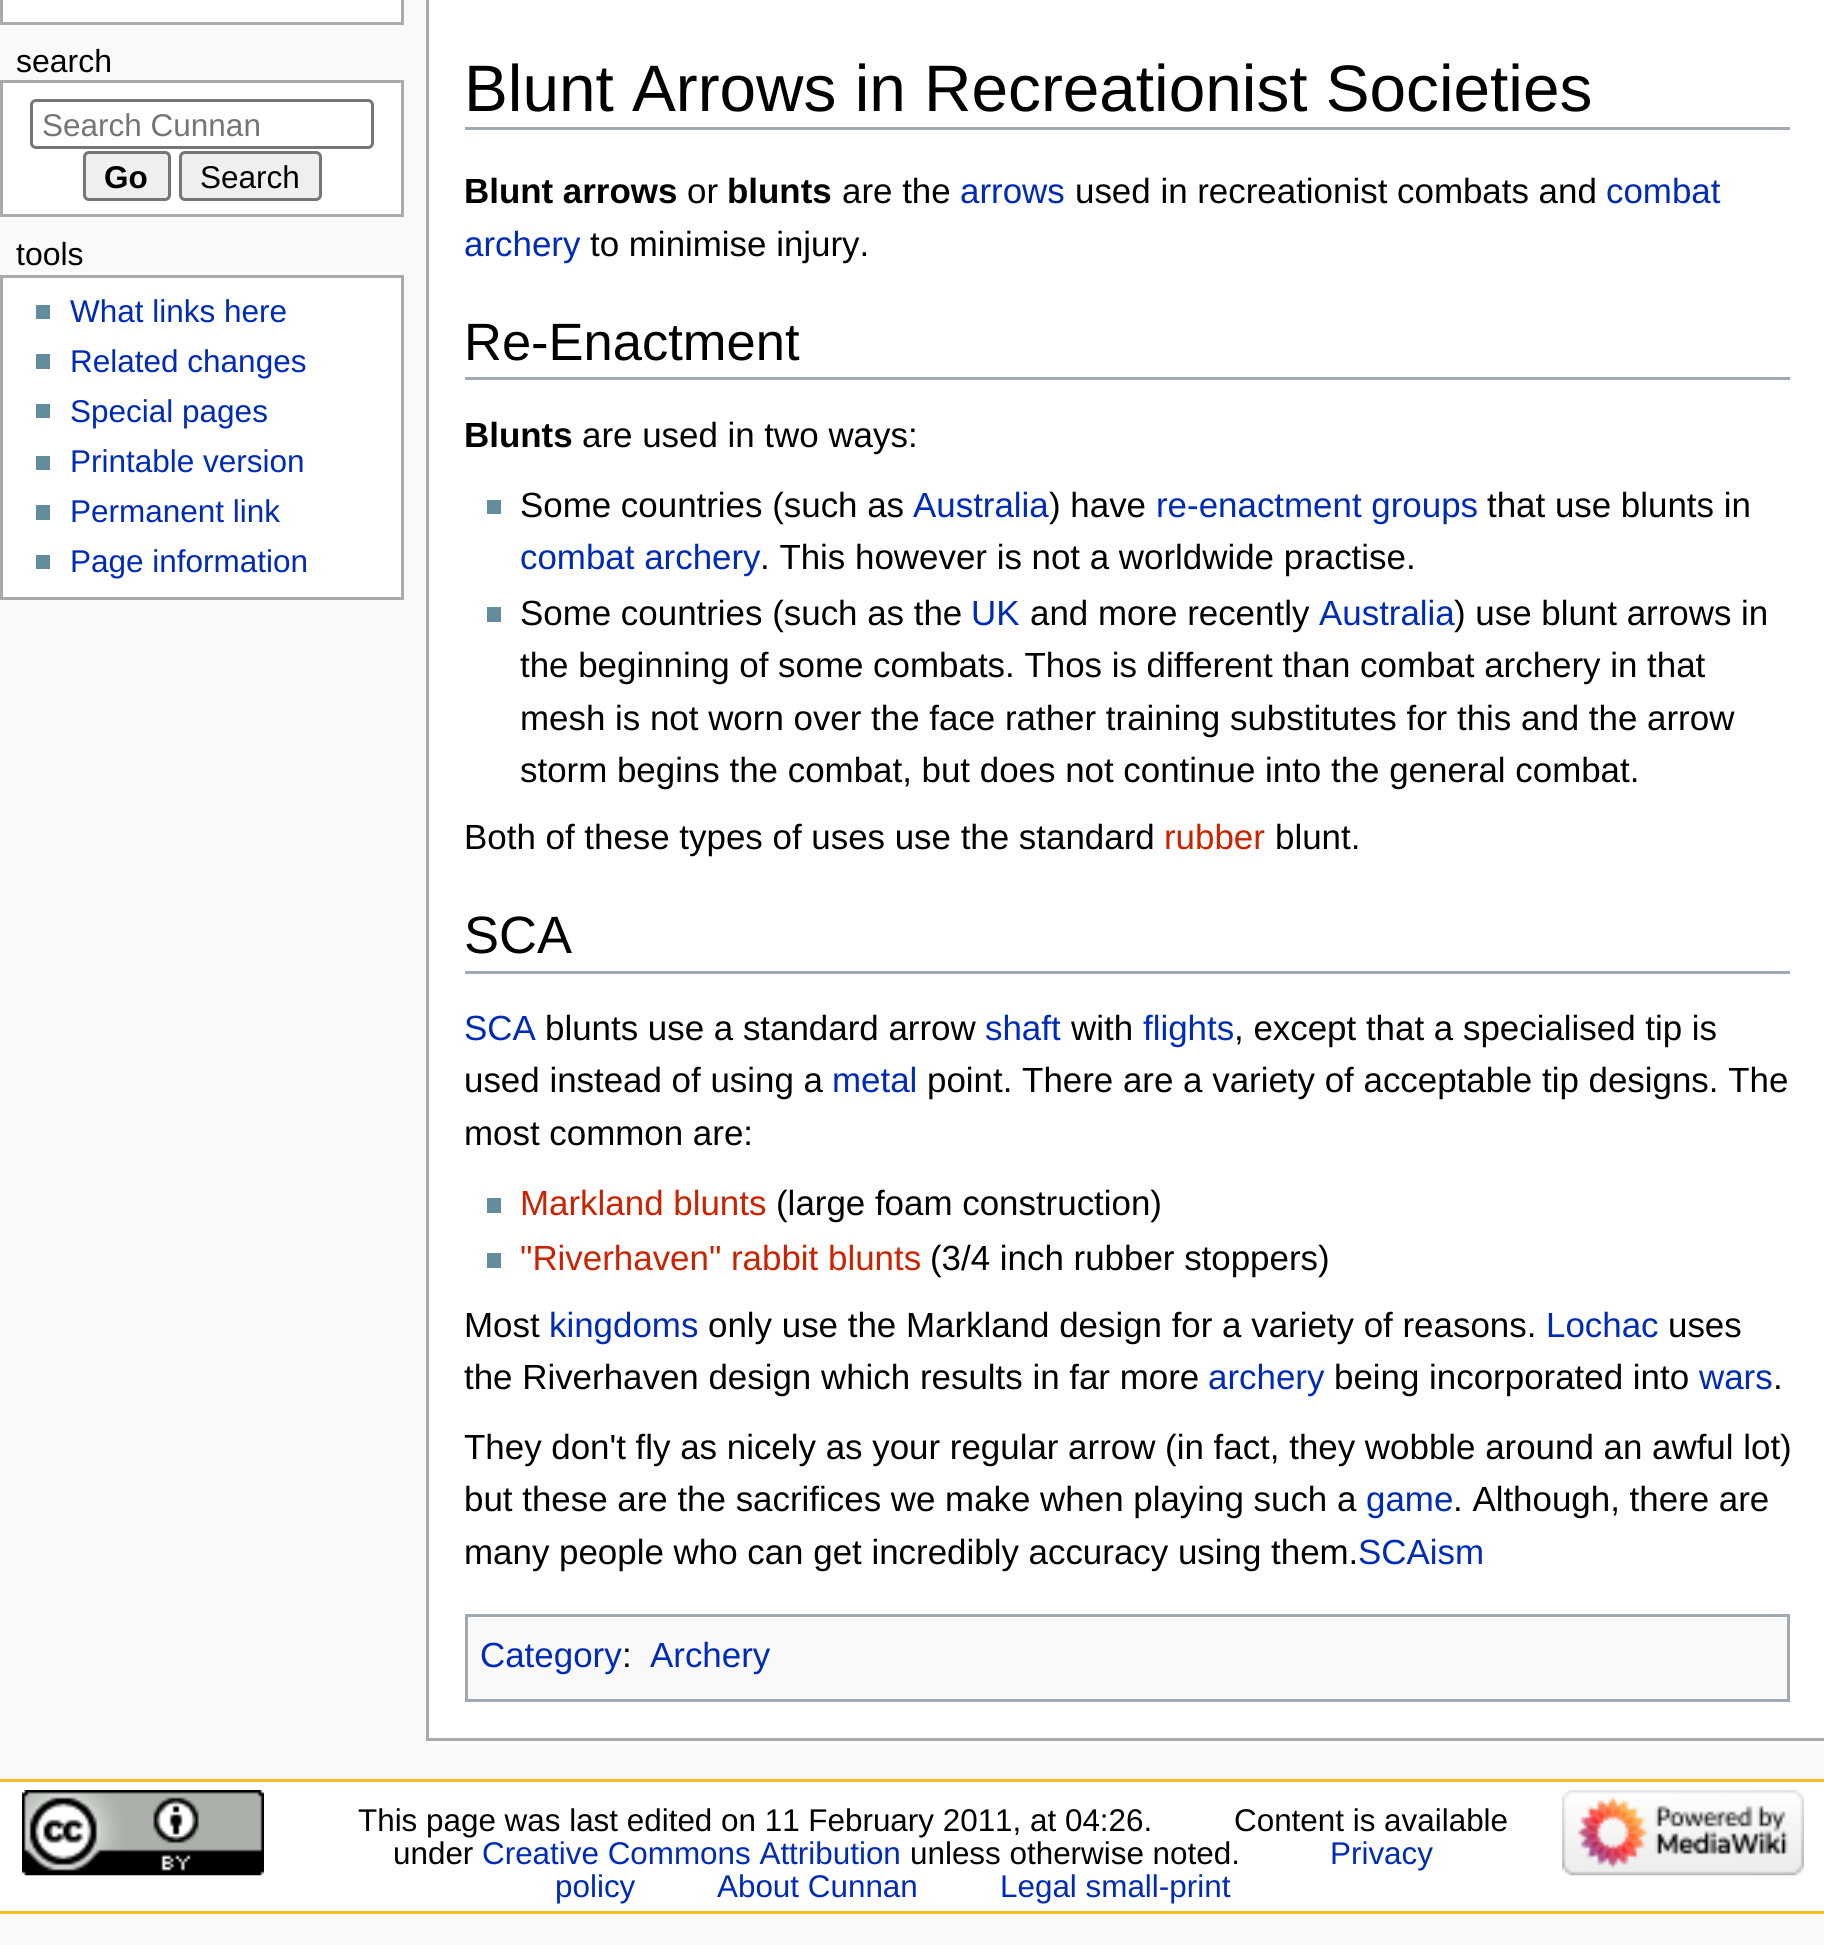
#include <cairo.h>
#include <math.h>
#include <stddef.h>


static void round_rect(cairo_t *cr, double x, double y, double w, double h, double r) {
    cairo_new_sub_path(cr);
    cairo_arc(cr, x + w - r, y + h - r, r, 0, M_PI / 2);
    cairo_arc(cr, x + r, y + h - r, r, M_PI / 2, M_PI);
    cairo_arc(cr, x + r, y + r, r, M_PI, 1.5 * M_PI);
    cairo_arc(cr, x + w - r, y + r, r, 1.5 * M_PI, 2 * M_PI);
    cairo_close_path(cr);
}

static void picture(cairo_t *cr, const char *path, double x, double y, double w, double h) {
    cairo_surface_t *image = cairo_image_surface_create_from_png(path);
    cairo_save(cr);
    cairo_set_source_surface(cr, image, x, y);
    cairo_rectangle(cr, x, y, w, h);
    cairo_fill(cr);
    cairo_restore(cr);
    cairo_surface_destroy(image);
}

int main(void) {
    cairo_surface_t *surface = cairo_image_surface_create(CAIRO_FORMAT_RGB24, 1824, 1945);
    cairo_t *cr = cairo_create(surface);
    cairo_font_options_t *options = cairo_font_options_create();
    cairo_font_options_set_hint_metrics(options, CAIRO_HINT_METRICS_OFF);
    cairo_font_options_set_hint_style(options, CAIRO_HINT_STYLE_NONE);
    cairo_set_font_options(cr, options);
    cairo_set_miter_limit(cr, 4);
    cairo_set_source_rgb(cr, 0.976, 0.976, 0.976);
    cairo_paint(cr);
    cairo_set_source_rgb(cr, 1, 1, 1);
    cairo_rectangle(cr, 1.5, -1.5, 401, 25);
    cairo_fill_preserve(cr);
    cairo_set_source_rgb(cr, 0.667, 0.667, 0.667);
    cairo_set_line_width(cr, 3);
    cairo_stroke(cr);
    cairo_select_font_face(cr, "Liberation Sans", CAIRO_FONT_SLANT_NORMAL, CAIRO_FONT_WEIGHT_NORMAL);
    cairo_set_font_size(cr, 32);
    cairo_set_source_rgb(cr, 0, 0, 0);
    cairo_move_to(cr, 16, 72);
    cairo_show_text(cr, "search");
    cairo_set_source_rgb(cr, 1, 1, 1);
    cairo_rectangle(cr, 1.5, 81.5, 401, 134);
    cairo_fill_preserve(cr);
    cairo_set_source_rgb(cr, 0.667, 0.667, 0.667);
    cairo_stroke(cr);
    round_rect(cr, 31.5, 100.5, 341, 47, 4.5);
    cairo_set_source_rgb(cr, 0.463, 0.463, 0.463);
    cairo_stroke(cr);
    cairo_set_font_size(cr, 31.5);
    cairo_set_source_rgb(cr, 0.459, 0.459, 0.459);
    cairo_move_to(cr, 42, 136);
    cairo_show_text(cr, "Search Cunnan");
    cairo_set_source_rgb(cr, 0.937, 0.937, 0.937);
    round_rect(cr, 84.5, 152.5, 85, 47, 4.5);
    cairo_fill_preserve(cr);
    cairo_set_source_rgb(cr, 0.463, 0.463, 0.463);
    cairo_stroke(cr);
    cairo_select_font_face(cr, "Liberation Sans", CAIRO_FONT_SLANT_NORMAL, CAIRO_FONT_WEIGHT_BOLD);
    cairo_set_source_rgb(cr, 0, 0, 0);
    cairo_move_to(cr, 104, 188);
    cairo_show_text(cr, "Go");
    cairo_set_source_rgb(cr, 0.937, 0.937, 0.937);
    round_rect(cr, 180.5, 152.5, 140, 47, 4.5);
    cairo_fill_preserve(cr);
    cairo_set_source_rgb(cr, 0.463, 0.463, 0.463);
    cairo_stroke(cr);
    cairo_select_font_face(cr, "Liberation Sans", CAIRO_FONT_SLANT_NORMAL, CAIRO_FONT_WEIGHT_NORMAL);
    cairo_set_source_rgb(cr, 0, 0, 0);
    cairo_move_to(cr, 200, 188);
    cairo_show_text(cr, "Search");
    cairo_set_font_size(cr, 32);
    cairo_move_to(cr, 16, 265);
    cairo_show_text(cr, "tools");
    cairo_set_source_rgb(cr, 1, 1, 1);
    cairo_rectangle(cr, 1.5, 276.5, 401, 322);
    cairo_fill_preserve(cr);
    cairo_set_source_rgb(cr, 0.667, 0.667, 0.667);
    cairo_stroke(cr);
    cairo_set_source_rgb(cr, 0.388, 0.549, 0.612);
    cairo_rectangle(cr, 36, 305, 14, 14);
    cairo_fill(cr);
    cairo_set_font_size(cr, 31.5);
    cairo_set_source_rgb(cr, 0, 0.169, 0.722);
    cairo_move_to(cr, 70, 322);
    cairo_show_text(cr, "What links here");
    cairo_set_source_rgb(cr, 0.388, 0.549, 0.612);
    cairo_rectangle(cr, 36, 354, 14, 15);
    cairo_fill(cr);
    cairo_set_source_rgb(cr, 0, 0.169, 0.722);
    cairo_move_to(cr, 70, 372);
    cairo_show_text(cr, "Related changes");
    cairo_set_source_rgb(cr, 0.388, 0.549, 0.612);
    cairo_rectangle(cr, 36, 404, 14, 14);
    cairo_fill(cr);
    cairo_set_source_rgb(cr, 0, 0.169, 0.722);
    cairo_move_to(cr, 70, 422);
    cairo_show_text(cr, "Special pages");
    cairo_set_source_rgb(cr, 0.388, 0.549, 0.612);
    cairo_rectangle(cr, 36, 456, 14, 14);
    cairo_fill(cr);
    cairo_set_source_rgb(cr, 0, 0.169, 0.722);
    cairo_move_to(cr, 70, 472);
    cairo_show_text(cr, "Printable version");
    cairo_set_source_rgb(cr, 0.388, 0.549, 0.612);
    cairo_rectangle(cr, 36, 505, 14, 15);
    cairo_fill(cr);
    cairo_set_source_rgb(cr, 0, 0.169, 0.722);
    cairo_move_to(cr, 70, 522);
    cairo_show_text(cr, "Permanent link");
    cairo_set_source_rgb(cr, 0.388, 0.549, 0.612);
    cairo_rectangle(cr, 36, 555, 14, 14);
    cairo_fill(cr);
    cairo_set_source_rgb(cr, 0, 0.169, 0.722);
    cairo_move_to(cr, 70, 572);
    cairo_show_text(cr, "Page information");
    cairo_set_source_rgb(cr, 1, 1, 1);
    cairo_rectangle(cr, 429, 0, 1395, 1738);
    cairo_fill(cr);
    cairo_set_source_rgb(cr, 0.667, 0.667, 0.667);
    cairo_rectangle(cr, 426, 1738, 1398, 3);
    cairo_fill(cr);
    cairo_rectangle(cr, 426, 0, 3, 1741);
    cairo_fill(cr);
    cairo_set_source_rgb(cr, 0.635, 0.663, 0.694);
    cairo_rectangle(cr, 465, 127, 1325, 3);
    cairo_fill(cr);
    cairo_set_font_size(cr, 65.7);
    cairo_set_source_rgb(cr, 0, 0, 0);
    cairo_move_to(cr, 464, 111);
    cairo_show_text(cr, "Blunt Arrows in Recreationist Societies");
    cairo_select_font_face(cr, "Liberation Sans", CAIRO_FONT_SLANT_NORMAL, CAIRO_FONT_WEIGHT_BOLD);
    cairo_set_font_size(cr, 34.9);
    cairo_move_to(cr, 464, 203);
    cairo_show_text(cr, "Blunt arrows");
    cairo_select_font_face(cr, "Liberation Sans", CAIRO_FONT_SLANT_NORMAL, CAIRO_FONT_WEIGHT_NORMAL);
    cairo_move_to(cr, 687, 203);
    cairo_show_text(cr, "or");
    cairo_select_font_face(cr, "Liberation Sans", CAIRO_FONT_SLANT_NORMAL, CAIRO_FONT_WEIGHT_BOLD);
    cairo_move_to(cr, 727, 203);
    cairo_show_text(cr, "blunts");
    cairo_select_font_face(cr, "Liberation Sans", CAIRO_FONT_SLANT_NORMAL, CAIRO_FONT_WEIGHT_NORMAL);
    cairo_move_to(cr, 842, 203);
    cairo_show_text(cr, "are the");
    cairo_set_source_rgb(cr, 0, 0.169, 0.722);
    cairo_move_to(cr, 960, 203);
    cairo_show_text(cr, "arrows");
    cairo_set_source_rgb(cr, 0, 0, 0);
    cairo_move_to(cr, 1075, 203);
    cairo_show_text(cr, "used in recreationist combats and");
    cairo_set_source_rgb(cr, 0, 0.169, 0.722);
    cairo_move_to(cr, 1606, 203);
    cairo_show_text(cr, "combat");
    cairo_move_to(cr, 464, 256);
    cairo_show_text(cr, "archery");
    cairo_set_source_rgb(cr, 0, 0, 0);
    cairo_move_to(cr, 590, 256);
    cairo_show_text(cr, "to minimise injury.");
    cairo_set_source_rgb(cr, 0.635, 0.663, 0.694);
    cairo_rectangle(cr, 465, 377, 1325, 3);
    cairo_fill(cr);
    cairo_set_font_size(cr, 52.5);
    cairo_set_source_rgb(cr, 0, 0, 0);
    cairo_move_to(cr, 464, 360);
    cairo_show_text(cr, "Re-Enactment");
    cairo_select_font_face(cr, "Liberation Sans", CAIRO_FONT_SLANT_NORMAL, CAIRO_FONT_WEIGHT_BOLD);
    cairo_set_font_size(cr, 34.9);
    cairo_move_to(cr, 464, 447);
    cairo_show_text(cr, "Blunts");
    cairo_select_font_face(cr, "Liberation Sans", CAIRO_FONT_SLANT_NORMAL, CAIRO_FONT_WEIGHT_NORMAL);
    cairo_move_to(cr, 582, 447);
    cairo_show_text(cr, "are used in two ways:");
    cairo_set_source_rgb(cr, 0.388, 0.549, 0.612);
    cairo_rectangle(cr, 487, 500, 14, 14);
    cairo_fill(cr);
    cairo_set_source_rgb(cr, 0, 0, 0);
    cairo_move_to(cr, 520, 517);
    cairo_show_text(cr, "Some countries (such as");
    cairo_set_source_rgb(cr, 0, 0.169, 0.722);
    cairo_move_to(cr, 913, 517);
    cairo_show_text(cr, "Australia");
    cairo_set_source_rgb(cr, 0, 0, 0);
    cairo_move_to(cr, 1049, 517);
    cairo_show_text(cr, ") have");
    cairo_set_source_rgb(cr, 0, 0.169, 0.722);
    cairo_move_to(cr, 1156, 517);
    cairo_show_text(cr, "re-enactment groups");
    cairo_set_source_rgb(cr, 0, 0, 0);
    cairo_move_to(cr, 1487, 517);
    cairo_show_text(cr, "that use blunts in");
    cairo_set_source_rgb(cr, 0, 0.169, 0.722);
    cairo_move_to(cr, 520, 569);
    cairo_show_text(cr, "combat archery");
    cairo_set_source_rgb(cr, 0, 0, 0);
    cairo_move_to(cr, 760, 569);
    cairo_show_text(cr, ". This however is not a worldwide practise.");
    cairo_set_source_rgb(cr, 0.388, 0.549, 0.612);
    cairo_rectangle(cr, 487, 607, 14, 15);
    cairo_fill(cr);
    cairo_set_source_rgb(cr, 0, 0, 0);
    cairo_move_to(cr, 520, 625);
    cairo_show_text(cr, "Some countries (such as the");
    cairo_set_source_rgb(cr, 0, 0.169, 0.722);
    cairo_move_to(cr, 971, 625);
    cairo_show_text(cr, "UK");
    cairo_set_source_rgb(cr, 0, 0, 0);
    cairo_move_to(cr, 1030, 625);
    cairo_show_text(cr, "and more recently");
    cairo_set_source_rgb(cr, 0, 0.169, 0.722);
    cairo_move_to(cr, 1319, 625);
    cairo_show_text(cr, "Australia");
    cairo_set_source_rgb(cr, 0, 0, 0);
    cairo_move_to(cr, 1454, 625);
    cairo_show_text(cr, ") use blunt arrows in");
    cairo_move_to(cr, 520, 677);
    cairo_show_text(cr, "the beginning of some combats. Thos is different than combat archery in that");
    cairo_move_to(cr, 520, 730);
    cairo_show_text(cr, "mesh is not worn over the face rather training substitutes for this and the arrow");
    cairo_move_to(cr, 520, 782);
    cairo_show_text(cr, "storm begins the combat, but does not continue into the general combat.");
    cairo_move_to(cr, 464, 849);
    cairo_show_text(cr, "Both of these types of uses use the standard");
    cairo_set_source_rgb(cr, 0.8, 0.133, 0);
    cairo_move_to(cr, 1164, 849);
    cairo_show_text(cr, "rubber");
    cairo_set_source_rgb(cr, 0, 0, 0);
    cairo_move_to(cr, 1275, 849);
    cairo_show_text(cr, "blunt.");
    cairo_set_source_rgb(cr, 0.635, 0.663, 0.694);
    cairo_rectangle(cr, 465, 971, 1325, 3);
    cairo_fill(cr);
    cairo_set_font_size(cr, 52.5);
    cairo_set_source_rgb(cr, 0, 0, 0);
    cairo_move_to(cr, 464, 953);
    cairo_show_text(cr, "SCA");
    cairo_set_font_size(cr, 34.9);
    cairo_set_source_rgb(cr, 0, 0.169, 0.722);
    cairo_move_to(cr, 464, 1040);
    cairo_show_text(cr, "SCA");
    cairo_set_source_rgb(cr, 0, 0, 0);
    cairo_move_to(cr, 545, 1040);
    cairo_show_text(cr, "blunts use a standard arrow");
    cairo_set_source_rgb(cr, 0, 0.169, 0.722);
    cairo_move_to(cr, 985, 1040);
    cairo_show_text(cr, "shaft");
    cairo_set_source_rgb(cr, 0, 0, 0);
    cairo_move_to(cr, 1071, 1040);
    cairo_show_text(cr, "with");
    cairo_set_source_rgb(cr, 0, 0.169, 0.722);
    cairo_move_to(cr, 1143, 1040);
    cairo_show_text(cr, "flights");
    cairo_set_source_rgb(cr, 0, 0, 0);
    cairo_move_to(cr, 1234, 1040);
    cairo_show_text(cr, ", except that a specialised tip is");
    cairo_move_to(cr, 464, 1092);
    cairo_show_text(cr, "used instead of using a");
    cairo_set_source_rgb(cr, 0, 0.169, 0.722);
    cairo_move_to(cr, 832, 1092);
    cairo_show_text(cr, "metal");
    cairo_set_source_rgb(cr, 0, 0, 0);
    cairo_move_to(cr, 927, 1092);
    cairo_show_text(cr, "point. There are a variety of acceptable tip designs. The");
    cairo_move_to(cr, 464, 1145);
    cairo_show_text(cr, "most common are:");
    cairo_set_source_rgb(cr, 0.388, 0.549, 0.612);
    cairo_rectangle(cr, 487, 1198, 14, 15);
    cairo_fill(cr);
    cairo_set_source_rgb(cr, 0.8, 0.133, 0);
    cairo_move_to(cr, 520, 1215);
    cairo_show_text(cr, "Markland blunts");
    cairo_set_source_rgb(cr, 0, 0, 0);
    cairo_move_to(cr, 776, 1215);
    cairo_show_text(cr, "(large foam construction)");
    cairo_set_source_rgb(cr, 0.388, 0.549, 0.612);
    cairo_rectangle(cr, 487, 1253, 14, 15);
    cairo_fill(cr);
    cairo_set_source_rgb(cr, 0.8, 0.133, 0);
    cairo_move_to(cr, 520, 1270);
    cairo_show_text(cr, "\"Riverhaven\" rabbit blunts");
    cairo_set_source_rgb(cr, 0, 0, 0);
    cairo_move_to(cr, 930, 1270);
    cairo_show_text(cr, "(3/4 inch rubber stoppers)");
    cairo_move_to(cr, 464, 1337);
    cairo_show_text(cr, "Most");
    cairo_set_source_rgb(cr, 0, 0.169, 0.722);
    cairo_move_to(cr, 549, 1337);
    cairo_show_text(cr, "kingdoms");
    cairo_set_source_rgb(cr, 0, 0, 0);
    cairo_move_to(cr, 708, 1337);
    cairo_show_text(cr, "only use the Markland design for a variety of reasons.");
    cairo_set_source_rgb(cr, 0, 0.169, 0.722);
    cairo_move_to(cr, 1546, 1337);
    cairo_show_text(cr, "Lochac");
    cairo_set_source_rgb(cr, 0, 0, 0);
    cairo_move_to(cr, 1668, 1337);
    cairo_show_text(cr, "uses");
    cairo_move_to(cr, 464, 1389);
    cairo_show_text(cr, "the Riverhaven design which results in far more");
    cairo_set_source_rgb(cr, 0, 0.169, 0.722);
    cairo_move_to(cr, 1208, 1389);
    cairo_show_text(cr, "archery");
    cairo_set_source_rgb(cr, 0, 0, 0);
    cairo_move_to(cr, 1334, 1389);
    cairo_show_text(cr, "being incorporated into");
    cairo_set_source_rgb(cr, 0, 0.169, 0.722);
    cairo_move_to(cr, 1699, 1389);
    cairo_show_text(cr, "wars");
    cairo_set_source_rgb(cr, 0, 0, 0);
    cairo_move_to(cr, 1773, 1389);
    cairo_show_text(cr, ".");
    cairo_move_to(cr, 464, 1459);
    cairo_show_text(cr, "They don't fly as nicely as your regular arrow (in fact, they wobble around an awful lot)");
    cairo_move_to(cr, 464, 1511);
    cairo_show_text(cr, "but these are the sacrifices we make when playing such a");
    cairo_set_source_rgb(cr, 0, 0.169, 0.722);
    cairo_move_to(cr, 1366, 1511);
    cairo_show_text(cr, "game");
    cairo_set_source_rgb(cr, 0, 0, 0);
    cairo_move_to(cr, 1453, 1511);
    cairo_show_text(cr, ". Although, there are");
    cairo_move_to(cr, 464, 1564);
    cairo_show_text(cr, "many people who can get incredibly accuracy using them.");
    cairo_set_source_rgb(cr, 0, 0.169, 0.722);
    cairo_move_to(cr, 1358, 1564);
    cairo_show_text(cr, "SCAism");
    cairo_set_source_rgb(cr, 0.973, 0.976, 0.98);
    cairo_rectangle(cr, 466.5, 1615.5, 1322, 85);
    cairo_fill_preserve(cr);
    cairo_set_source_rgb(cr, 0.635, 0.663, 0.694);
    cairo_stroke(cr);
    cairo_set_source_rgb(cr, 0, 0.169, 0.722);
    cairo_move_to(cr, 480, 1667);
    cairo_show_text(cr, "Category");
    cairo_set_source_rgb(cr, 0, 0, 0);
    cairo_move_to(cr, 622, 1667);
    cairo_show_text(cr, ":");
    cairo_set_source_rgb(cr, 0, 0.169, 0.722);
    cairo_move_to(cr, 650, 1667);
    cairo_show_text(cr, "Archery");
    cairo_set_source_rgb(cr, 1, 1, 1);
    cairo_rectangle(cr, 0, 1782, 1824, 129);
    cairo_fill(cr);
    cairo_set_source_rgb(cr, 0.98, 0.741, 0.137);
    cairo_rectangle(cr, 0, 1779, 1824, 3);
    cairo_fill(cr);
    cairo_rectangle(cr, 0, 1911, 1824, 3);
    cairo_fill(cr);
    picture(cr, "img1.png", 22, 1790, 242, 86);
    cairo_set_font_size(cr, 31.4);
    cairo_set_source_rgb(cr, 0, 0, 0);
    cairo_move_to(cr, 358, 1831);
    cairo_show_text(cr, "This page was last edited on 11 February 2011, at 04:26.");
    cairo_move_to(cr, 1234, 1831);
    cairo_show_text(cr, "Content is available");
    cairo_move_to(cr, 393, 1864);
    cairo_show_text(cr, "under");
    cairo_set_source_rgb(cr, 0, 0.169, 0.722);
    cairo_move_to(cr, 482, 1864);
    cairo_show_text(cr, "Creative Commons Attribution");
    cairo_set_source_rgb(cr, 0, 0, 0);
    cairo_move_to(cr, 910, 1864);
    cairo_show_text(cr, "unless otherwise noted.");
    cairo_set_source_rgb(cr, 0, 0.169, 0.722);
    cairo_move_to(cr, 1330, 1864);
    cairo_show_text(cr, "Privacy");
    cairo_move_to(cr, 555, 1897);
    cairo_show_text(cr, "policy");
    cairo_move_to(cr, 717, 1897);
    cairo_show_text(cr, "About Cunnan");
    cairo_move_to(cr, 1000, 1897);
    cairo_show_text(cr, "Legal small-print");
    picture(cr, "img2.png", 1562, 1790, 242, 86);
    cairo_surface_write_to_png(surface, "page.png");
    cairo_font_options_destroy(options);
    cairo_destroy(cr);
    cairo_surface_destroy(surface);
    return 0;
}
